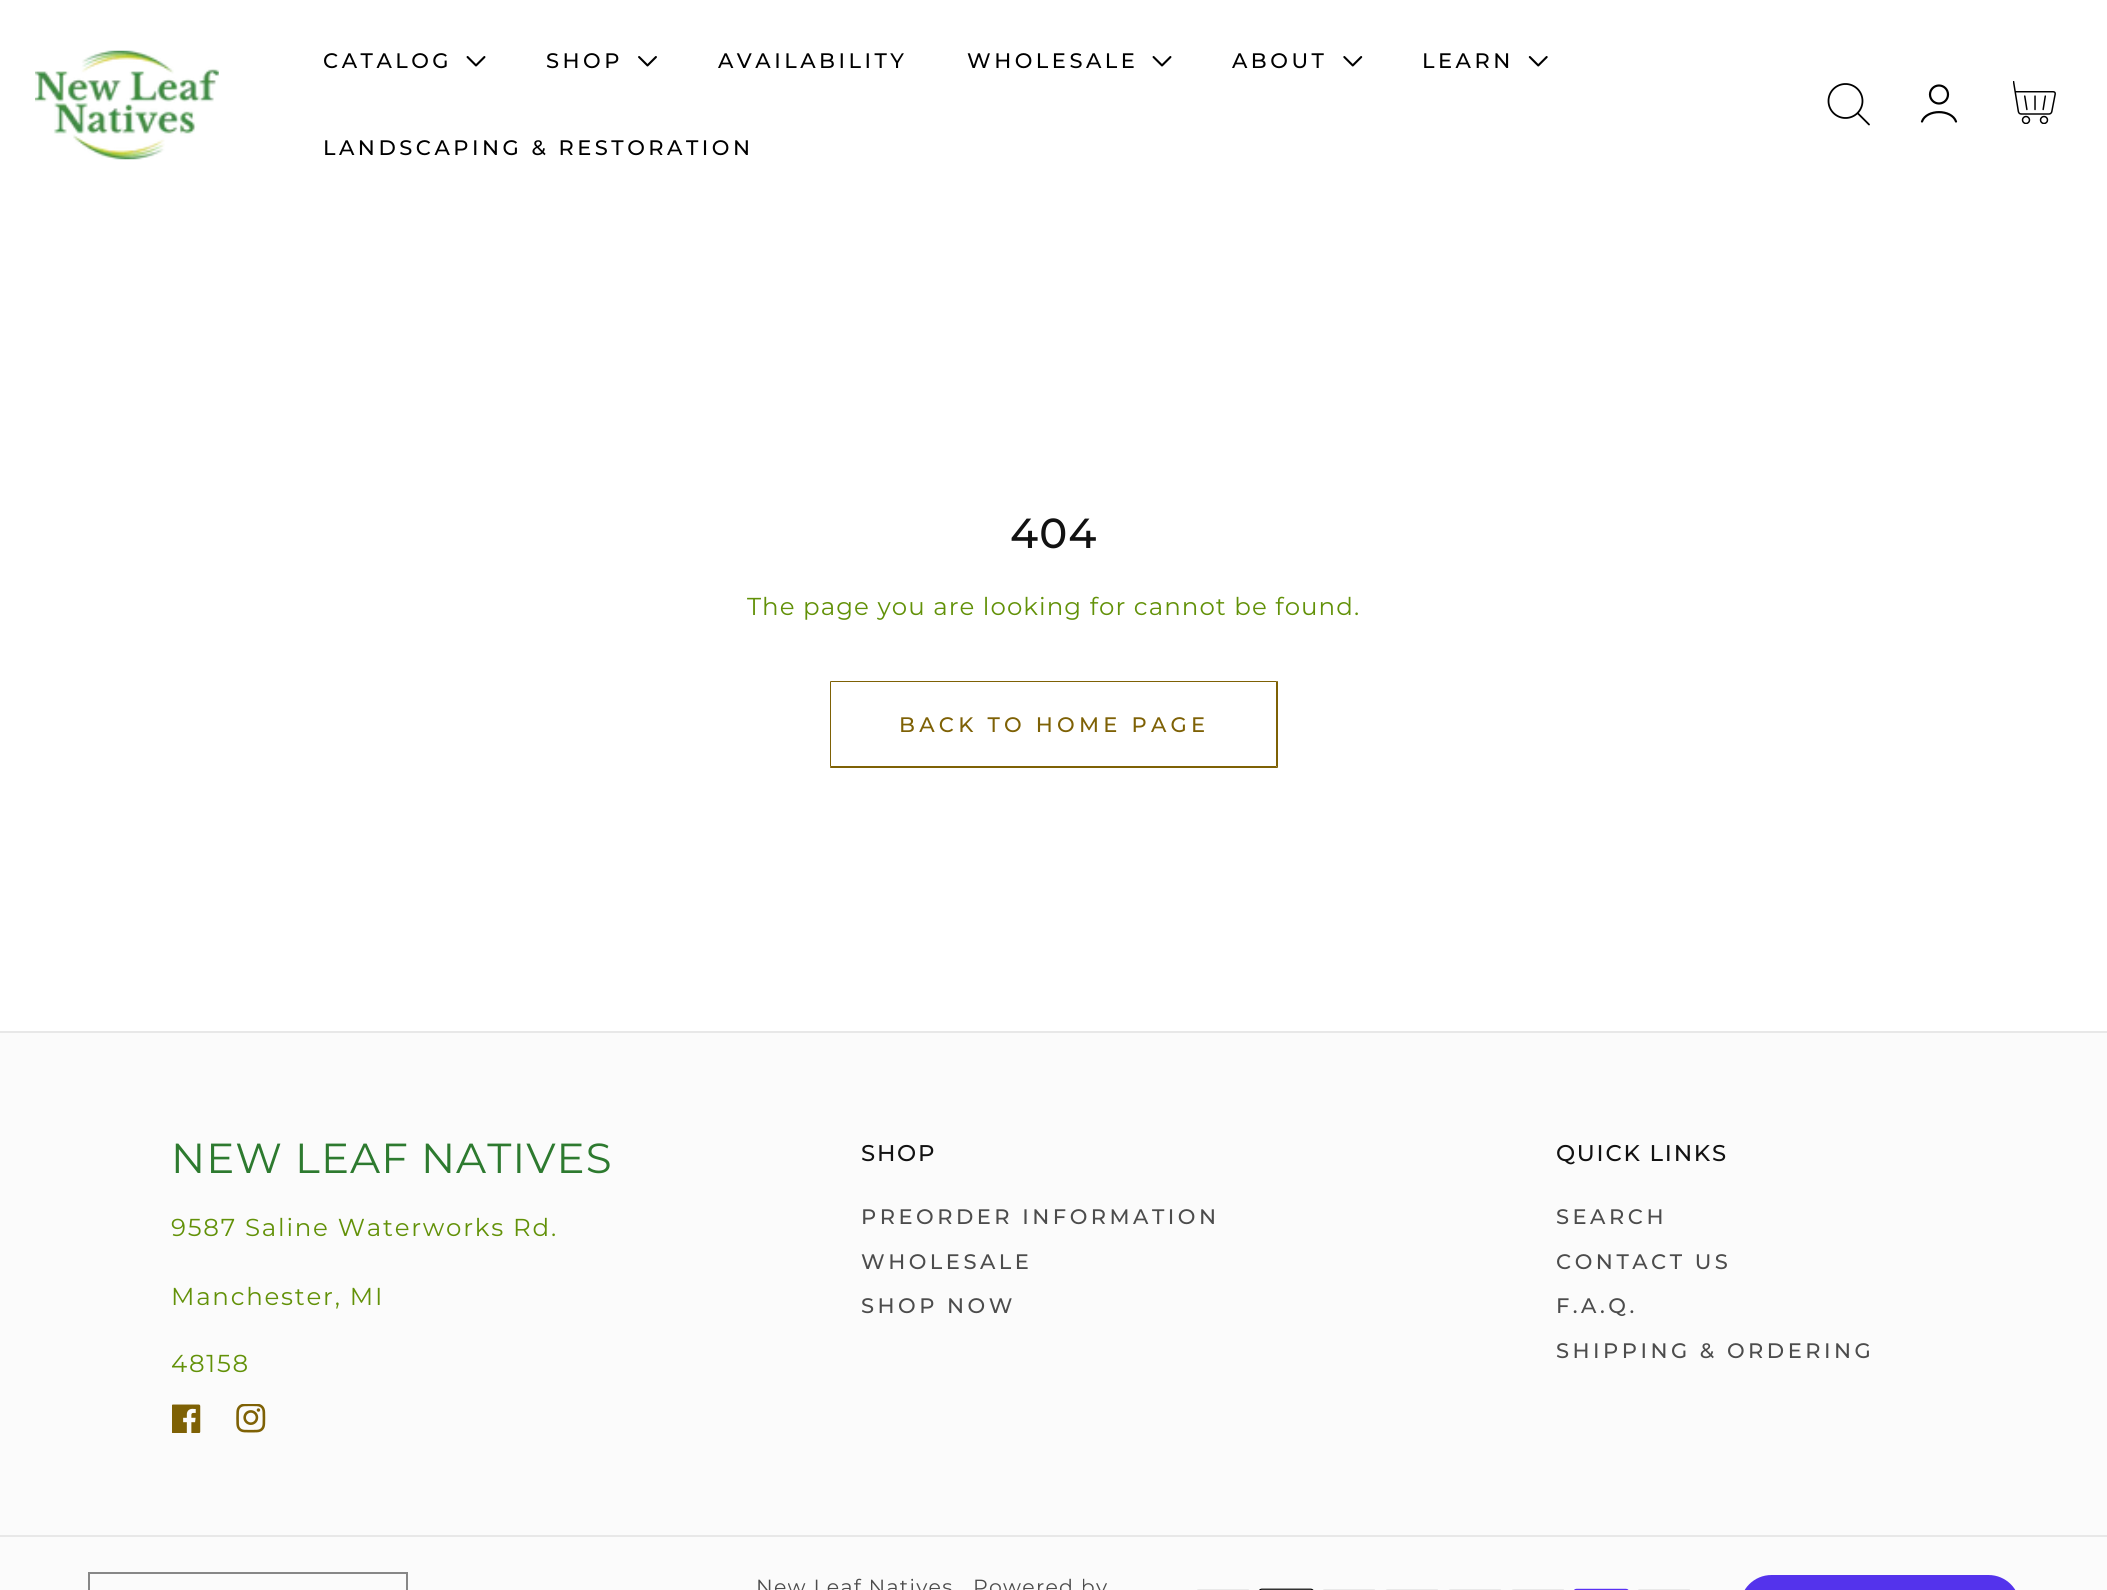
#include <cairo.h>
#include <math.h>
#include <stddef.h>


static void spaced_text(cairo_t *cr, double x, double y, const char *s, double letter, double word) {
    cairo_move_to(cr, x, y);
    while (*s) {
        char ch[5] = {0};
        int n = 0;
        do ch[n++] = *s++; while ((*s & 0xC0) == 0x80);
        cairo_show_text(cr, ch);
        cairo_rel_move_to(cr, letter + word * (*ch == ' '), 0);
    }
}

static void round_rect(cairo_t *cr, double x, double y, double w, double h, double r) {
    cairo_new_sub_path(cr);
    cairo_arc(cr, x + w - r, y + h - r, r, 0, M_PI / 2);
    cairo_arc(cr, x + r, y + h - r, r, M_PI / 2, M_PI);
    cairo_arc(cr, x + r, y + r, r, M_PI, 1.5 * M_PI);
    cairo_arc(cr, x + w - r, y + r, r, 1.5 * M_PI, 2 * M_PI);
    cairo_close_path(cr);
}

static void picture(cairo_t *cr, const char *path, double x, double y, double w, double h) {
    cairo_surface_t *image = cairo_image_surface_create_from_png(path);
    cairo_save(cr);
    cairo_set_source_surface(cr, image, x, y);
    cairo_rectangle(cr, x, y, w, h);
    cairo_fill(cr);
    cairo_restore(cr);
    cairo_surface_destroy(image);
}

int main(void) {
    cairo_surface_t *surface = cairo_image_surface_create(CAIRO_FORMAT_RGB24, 2107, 1590);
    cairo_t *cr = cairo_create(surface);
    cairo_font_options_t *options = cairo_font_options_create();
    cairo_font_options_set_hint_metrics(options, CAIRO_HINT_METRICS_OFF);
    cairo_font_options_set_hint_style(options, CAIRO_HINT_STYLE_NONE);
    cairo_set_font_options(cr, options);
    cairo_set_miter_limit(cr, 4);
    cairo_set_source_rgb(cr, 1, 1, 1);
    cairo_paint(cr);
    picture(cr, "img1.png", 35, 50, 184, 110);
    cairo_select_font_face(cr, "Montserrat Medium", CAIRO_FONT_SLANT_NORMAL, CAIRO_FONT_WEIGHT_NORMAL);
    cairo_set_font_size(cr, 21);
    cairo_set_source_rgb(cr, 0, 0, 0);
    spaced_text(cr, 323, 68, "CATALOG", 3.5, 0);
    picture(cr, "img2.png", 466, 56, 20, 11);
    spaced_text(cr, 546, 68, "SHOP", 3.5, 0);
    picture(cr, "img3.png", 638, 56, 19, 11);
    spaced_text(cr, 718, 68, "AVAILABILITY", 3.5, 0);
    spaced_text(cr, 967, 68, "WHOLESALE", 3.5, 0);
    picture(cr, "img2.png", 1152, 56, 20, 11);
    spaced_text(cr, 1232, 68, "ABOUT", 3.5, 0);
    picture(cr, "img4.png", 1343, 56, 20, 11);
    spaced_text(cr, 1422, 68, "LEARN", 3.5, 0);
    picture(cr, "img5.png", 1528, 56, 20, 11);
    spaced_text(cr, 323, 155, "LANDSCAPING & RESTORATION", 3.5, 0);
    cairo_new_path(cr);
    cairo_arc(cr, 1845.5, 101, 17, 0, 2 * M_PI);
    cairo_set_line_width(cr, 1.8);
    cairo_stroke(cr);
    cairo_new_path(cr);
    cairo_move_to(cr, 1858, 113.5);
    cairo_line_to(cr, 1869, 124.5);
    cairo_set_line_cap(cr, CAIRO_LINE_CAP_ROUND);
    cairo_stroke(cr);
    cairo_new_path(cr);
    cairo_move_to(cr, 1956, 121.5);
    cairo_curve_to(cr, 1951.5, 109, 1926.5, 109, 1922, 121.5);
    cairo_set_line_width(cr, 2.2);
    cairo_stroke(cr);
    cairo_arc(cr, 1939, 94.5, 9, 0, 2 * M_PI);
    cairo_set_line_cap(cr, CAIRO_LINE_CAP_BUTT);
    cairo_stroke(cr);
    picture(cr, "img6.png", 2013, 81, 43, 43);
    cairo_set_font_size(cr, 42);
    cairo_set_source_rgb(cr, 0.071, 0.071, 0.071);
    spaced_text(cr, 1010, 548, "404", 1.05, 0);
    cairo_select_font_face(cr, "Montserrat", CAIRO_FONT_SLANT_NORMAL, CAIRO_FONT_WEIGHT_NORMAL);
    cairo_set_font_size(cr, 24.5);
    cairo_set_source_rgb(cr, 0.384, 0.569, 0.035);
    spaced_text(cr, 747, 615, "The page you are looking for cannot be found.", 1.05, 0);
    cairo_set_source_rgb(cr, 0.494, 0.38, 0.02);
    cairo_new_path(cr);
    cairo_move_to(cr, 830, 681);
    cairo_line_to(cr, 1278, 681);
    cairo_line_to(cr, 1276, 682);
    cairo_line_to(cr, 831, 682);
    cairo_close_path(cr);
    cairo_fill(cr);
    cairo_new_path(cr);
    cairo_move_to(cr, 830, 768);
    cairo_line_to(cr, 830, 681);
    cairo_line_to(cr, 831, 682);
    cairo_line_to(cr, 831, 766);
    cairo_close_path(cr);
    cairo_fill(cr);
    cairo_new_path(cr);
    cairo_move_to(cr, 1278, 681);
    cairo_line_to(cr, 1278, 768);
    cairo_line_to(cr, 1276, 766);
    cairo_line_to(cr, 1276, 682);
    cairo_close_path(cr);
    cairo_fill(cr);
    cairo_new_path(cr);
    cairo_move_to(cr, 1278, 768);
    cairo_line_to(cr, 830, 768);
    cairo_line_to(cr, 831, 766);
    cairo_line_to(cr, 1276, 766);
    cairo_close_path(cr);
    cairo_fill(cr);
    cairo_select_font_face(cr, "Montserrat Medium", CAIRO_FONT_SLANT_NORMAL, CAIRO_FONT_WEIGHT_NORMAL);
    cairo_set_font_size(cr, 21);
    spaced_text(cr, 899, 732, "BACK TO HOME PAGE", 4.25, 0);
    cairo_set_source_rgb(cr, 0.984, 0.984, 0.984);
    cairo_rectangle(cr, 0, 1033, 2107, 557);
    cairo_fill(cr);
    cairo_set_source_rgb(cr, 0.91, 0.91, 0.91);
    cairo_rectangle(cr, 0, 1031, 2107, 2);
    cairo_fill(cr);
    cairo_select_font_face(cr, "Montserrat", CAIRO_FONT_SLANT_NORMAL, CAIRO_FONT_WEIGHT_NORMAL);
    cairo_set_font_size(cr, 42);
    cairo_set_source_rgb(cr, 0.176, 0.478, 0.184);
    spaced_text(cr, 171, 1173, "NEW LEAF NATIVES", 1.05, 0);
    cairo_set_font_size(cr, 24.5);
    cairo_set_source_rgb(cr, 0.384, 0.569, 0.035);
    spaced_text(cr, 171, 1236, "9587 Saline Waterworks Rd.", 1.75, 0);
    spaced_text(cr, 171, 1305, "Manchester, MI", 1.75, 0);
    spaced_text(cr, 171, 1372, "48158", 1.75, 0);
    picture(cr, "img7.png", 172, 1404, 29, 29);
    picture(cr, "img8.png", 236, 1404, 30, 29);
    cairo_select_font_face(cr, "Montserrat Medium", CAIRO_FONT_SLANT_NORMAL, CAIRO_FONT_WEIGHT_NORMAL);
    cairo_set_font_size(cr, 22.75);
    cairo_set_source_rgb(cr, 0.071, 0.071, 0.071);
    spaced_text(cr, 861, 1161, "SHOP", 1.75, 0);
    cairo_set_font_size(cr, 21);
    cairo_set_source_rgb(cr, 0.298, 0.298, 0.298);
    spaced_text(cr, 861, 1224, "PREORDER INFORMATION", 3.5, 0);
    spaced_text(cr, 861, 1269, "WHOLESALE", 3.5, 0);
    spaced_text(cr, 861, 1313, "SHOP NOW", 3.5, 0);
    cairo_set_font_size(cr, 22.75);
    cairo_set_source_rgb(cr, 0.071, 0.071, 0.071);
    spaced_text(cr, 1556, 1161, "QUICK LINKS", 1.75, 0);
    cairo_set_font_size(cr, 21);
    cairo_set_source_rgb(cr, 0.298, 0.298, 0.298);
    spaced_text(cr, 1556, 1224, "SEARCH", 3.5, 0);
    spaced_text(cr, 1556, 1269, "CONTACT US", 3.5, 0);
    spaced_text(cr, 1556, 1313, "F.A.Q.", 3.5, 0);
    spaced_text(cr, 1556, 1358, "SHIPPING & ORDERING", 3.5, 0);
    cairo_set_source_rgb(cr, 0.91, 0.91, 0.91);
    cairo_rectangle(cr, 0, 1535, 2107, 2);
    cairo_fill(cr);
    cairo_rectangle(cr, 89, 1573, 318, 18);
    cairo_set_source_rgb(cr, 0.529, 0.529, 0.529);
    cairo_set_line_width(cr, 2);
    cairo_stroke(cr);
    cairo_select_font_face(cr, "Montserrat", CAIRO_FONT_SLANT_NORMAL, CAIRO_FONT_WEIGHT_NORMAL);
    cairo_set_font_size(cr, 20.5);
    cairo_set_source_rgb(cr, 0.298, 0.298, 0.298);
    spaced_text(cr, 756, 1594, "New Leaf Natives", 1.25, 0);
    spaced_text(cr, 973, 1594, "Powered by", 1.25, 0);
    picture(cr, "img9.png", 1197, 1589, 52, 1);
    picture(cr, "img10.png", 1259, 1588, 55, 2);
    picture(cr, "img9.png", 1323, 1589, 52, 1);
    picture(cr, "img9.png", 1386, 1589, 52, 1);
    picture(cr, "img9.png", 1449, 1589, 52, 1);
    picture(cr, "img9.png", 1512, 1589, 52, 1);
    picture(cr, "img11.png", 1574, 1588, 55, 2);
    picture(cr, "img9.png", 1638, 1589, 52, 1);
    cairo_set_source_rgb(cr, 0.329, 0.2, 0.922);
    round_rect(cr, 1740, 1575, 280, 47, 31.5);
    cairo_fill(cr);
    cairo_surface_write_to_png(surface, "page.png");
    cairo_font_options_destroy(options);
    cairo_destroy(cr);
    cairo_surface_destroy(surface);
    return 0;
}
